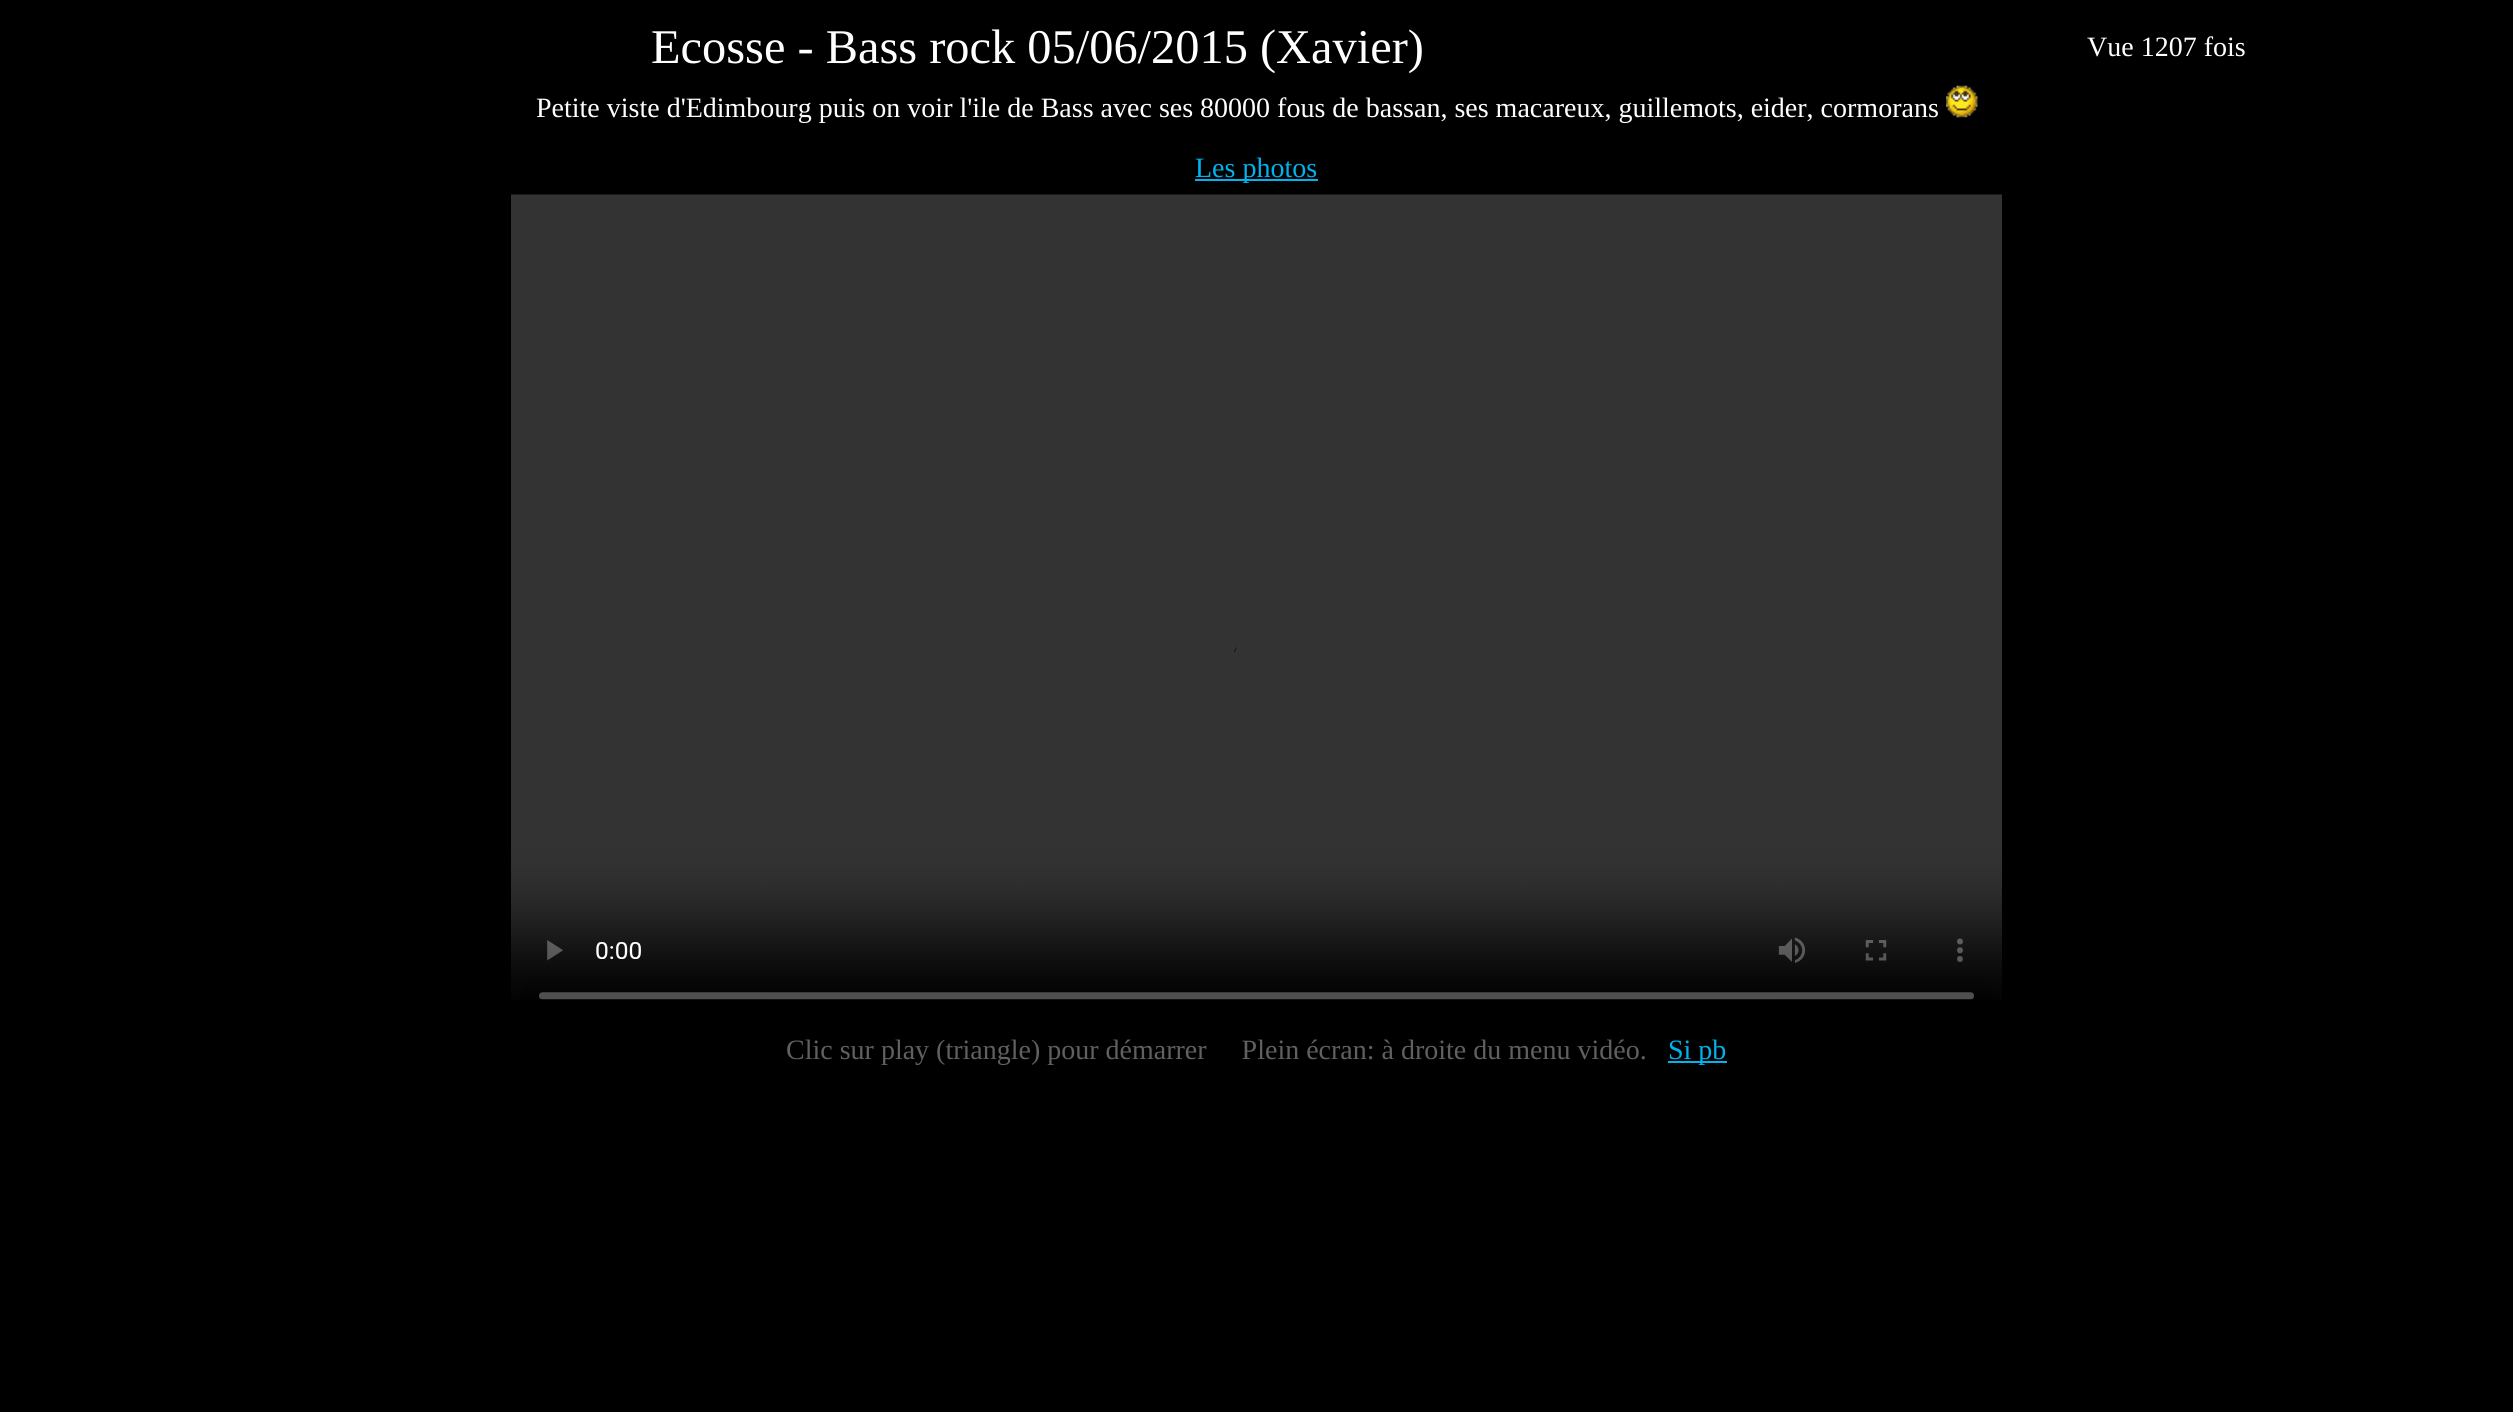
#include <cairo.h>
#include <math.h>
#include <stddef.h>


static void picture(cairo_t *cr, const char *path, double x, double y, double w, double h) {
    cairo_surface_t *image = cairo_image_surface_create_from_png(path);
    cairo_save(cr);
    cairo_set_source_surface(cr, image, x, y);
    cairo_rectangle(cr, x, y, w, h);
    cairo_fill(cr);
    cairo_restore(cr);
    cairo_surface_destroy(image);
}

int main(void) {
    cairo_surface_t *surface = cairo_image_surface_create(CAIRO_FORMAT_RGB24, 2513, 1412);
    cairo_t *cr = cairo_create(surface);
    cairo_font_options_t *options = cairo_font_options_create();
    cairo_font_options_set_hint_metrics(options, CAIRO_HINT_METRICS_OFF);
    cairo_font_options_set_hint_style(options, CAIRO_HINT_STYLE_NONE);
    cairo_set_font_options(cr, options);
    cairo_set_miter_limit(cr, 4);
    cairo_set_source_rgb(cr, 0, 0, 0);
    cairo_paint(cr);
    cairo_select_font_face(cr, "Liberation Serif", CAIRO_FONT_SLANT_NORMAL, CAIRO_FONT_WEIGHT_NORMAL);
    cairo_set_font_size(cr, 48.4);
    cairo_set_source_rgb(cr, 1, 1, 1);
    cairo_move_to(cr, 651, 63);
    cairo_show_text(cr, "Ecosse - Bass rock 05/06/2015 (Xavier)");
    cairo_set_font_size(cr, 28);
    cairo_move_to(cr, 2087, 56);
    cairo_show_text(cr, "Vue 1207 fois");
    cairo_move_to(cr, 536, 117);
    cairo_show_text(cr, "Petite viste d'Edimbourg puis on voir l'ile de Bass avec ses 80000 fous de bassan, ses macareux, guillemots, eider, cormorans");
    picture(cr, "img1.png", 1946, 85, 32, 33);
    cairo_set_source_rgb(cr, 0, 0.698, 0.933);
    cairo_rectangle(cr, 1195, 179, 123, 2);
    cairo_fill(cr);
    cairo_move_to(cr, 1195, 177);
    cairo_show_text(cr, "Les photos");
    picture(cr, "img2.png", 511, 194, 1491, 806);
    cairo_set_source_rgb(cr, 0.376, 0.376, 0.376);
    cairo_move_to(cr, 786, 1059);
    cairo_show_text(cr, "Clic sur play (triangle) pour démarrer     Plein écran: à droite du menu vidéo.");
    cairo_set_source_rgb(cr, 0, 0.698, 0.933);
    cairo_rectangle(cr, 1668, 1061, 59, 2);
    cairo_fill(cr);
    cairo_move_to(cr, 1668, 1059);
    cairo_show_text(cr, "Si pb");
    cairo_surface_write_to_png(surface, "page.png");
    cairo_font_options_destroy(options);
    cairo_destroy(cr);
    cairo_surface_destroy(surface);
    return 0;
}
